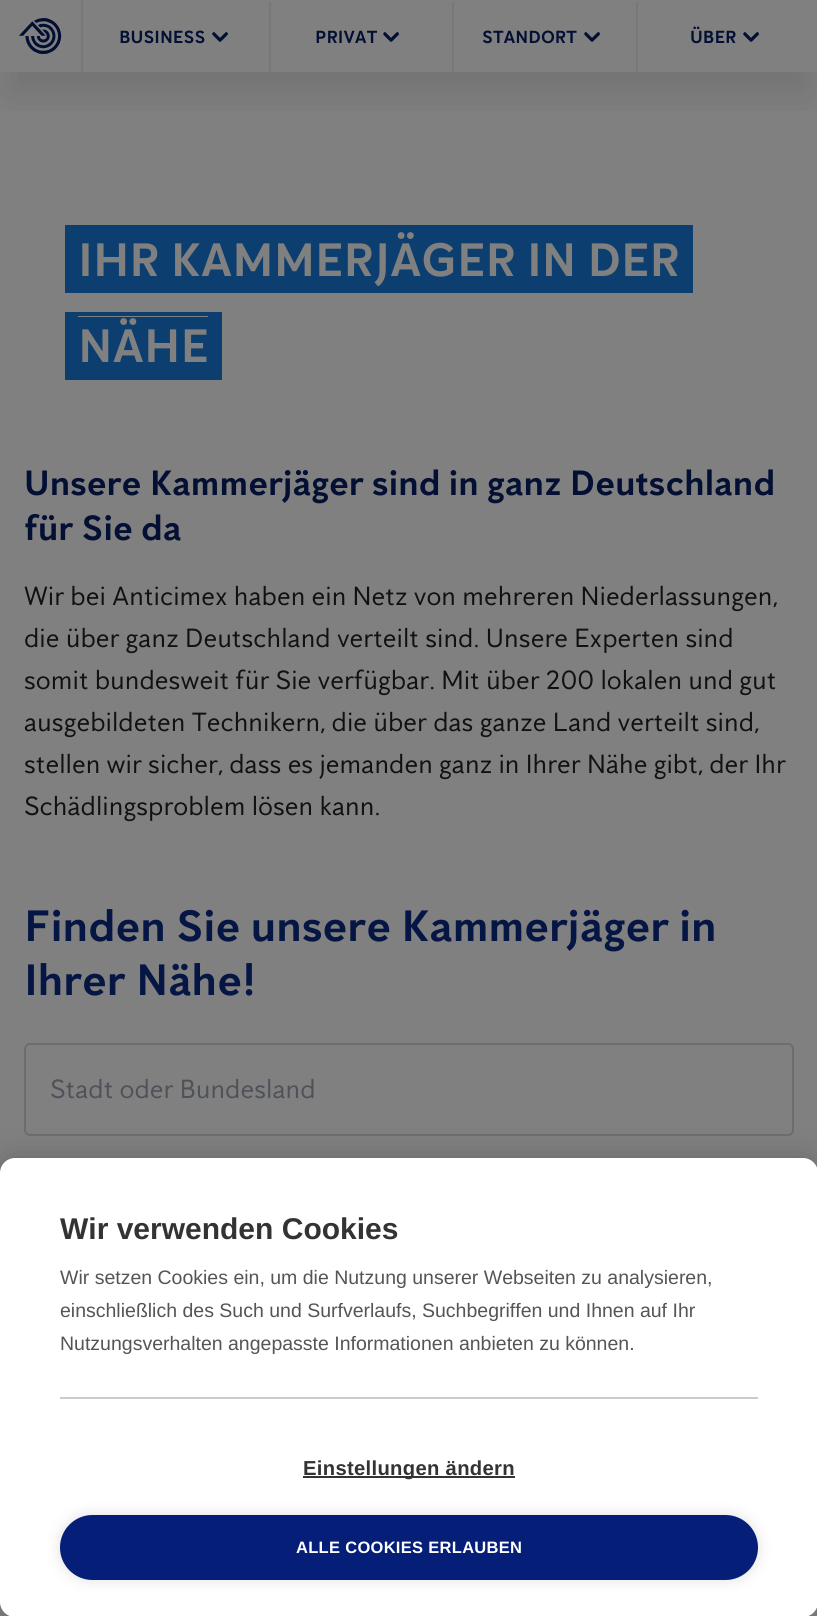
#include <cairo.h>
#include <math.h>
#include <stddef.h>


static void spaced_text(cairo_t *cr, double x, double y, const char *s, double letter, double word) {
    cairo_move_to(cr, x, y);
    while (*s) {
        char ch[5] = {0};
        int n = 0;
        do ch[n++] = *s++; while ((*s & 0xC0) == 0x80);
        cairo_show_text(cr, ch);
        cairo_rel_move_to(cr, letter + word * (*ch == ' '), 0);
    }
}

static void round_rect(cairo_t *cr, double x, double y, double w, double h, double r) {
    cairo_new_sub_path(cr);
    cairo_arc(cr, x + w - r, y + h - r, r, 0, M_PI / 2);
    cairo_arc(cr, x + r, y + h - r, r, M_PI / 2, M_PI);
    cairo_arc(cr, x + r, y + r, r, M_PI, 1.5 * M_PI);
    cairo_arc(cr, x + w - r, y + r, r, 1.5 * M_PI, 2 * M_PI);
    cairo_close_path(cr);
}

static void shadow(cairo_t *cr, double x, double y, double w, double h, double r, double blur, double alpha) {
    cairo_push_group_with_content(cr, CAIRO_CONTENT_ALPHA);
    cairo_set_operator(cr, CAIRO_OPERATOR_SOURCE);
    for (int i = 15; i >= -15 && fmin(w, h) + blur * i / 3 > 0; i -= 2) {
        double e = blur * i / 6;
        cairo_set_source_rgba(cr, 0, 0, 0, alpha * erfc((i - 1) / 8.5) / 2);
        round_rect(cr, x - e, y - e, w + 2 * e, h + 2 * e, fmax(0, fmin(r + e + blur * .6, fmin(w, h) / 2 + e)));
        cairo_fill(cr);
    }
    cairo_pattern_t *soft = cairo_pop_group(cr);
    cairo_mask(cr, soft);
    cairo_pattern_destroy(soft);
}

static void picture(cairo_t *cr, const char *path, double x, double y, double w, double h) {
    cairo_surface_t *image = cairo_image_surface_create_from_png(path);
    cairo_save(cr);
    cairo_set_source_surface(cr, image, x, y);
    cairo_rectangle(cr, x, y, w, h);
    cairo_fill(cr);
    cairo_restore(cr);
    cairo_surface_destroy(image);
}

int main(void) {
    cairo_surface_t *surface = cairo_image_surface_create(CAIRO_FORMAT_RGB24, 817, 1616);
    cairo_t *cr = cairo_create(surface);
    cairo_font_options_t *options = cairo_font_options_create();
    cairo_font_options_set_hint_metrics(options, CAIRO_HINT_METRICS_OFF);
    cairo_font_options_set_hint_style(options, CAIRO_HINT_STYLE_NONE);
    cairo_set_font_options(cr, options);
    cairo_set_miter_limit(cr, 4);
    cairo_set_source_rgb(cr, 0.502, 0.502, 0.502);
    cairo_paint(cr);
    cairo_save(cr);
    cairo_rectangle(cr, 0, 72, 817, 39);
    cairo_clip(cr);
    cairo_set_source_rgb(cr, 0, 0, 0);
    shadow(cr, 8, 38, 802, 57, 0, 19, 0.1);
    cairo_restore(cr);
    cairo_set_source_rgb(cr, 0.471, 0.471, 0.471);
    cairo_rectangle(cr, 81, 0, 2, 72);
    cairo_fill(cr);
    picture(cr, "img1.png", 19, 18, 43, 36);
    cairo_select_font_face(cr, "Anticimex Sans", CAIRO_FONT_SLANT_NORMAL, CAIRO_FONT_WEIGHT_BOLD);
    cairo_set_font_size(cr, 18);
    cairo_set_source_rgb(cr, 0.012, 0.059, 0.2);
    cairo_move_to(cr, 119, 43);
    cairo_show_text(cr, "BUSINESS");
    picture(cr, "img2.png", 212, 32, 16, 10);
    cairo_set_source_rgb(cr, 0.471, 0.471, 0.471);
    cairo_rectangle(cr, 269, 2, 2, 70);
    cairo_fill(cr);
    cairo_set_source_rgb(cr, 0.012, 0.059, 0.2);
    cairo_move_to(cr, 315, 43);
    cairo_show_text(cr, "PRIVAT");
    picture(cr, "img2.png", 383, 32, 16, 10);
    cairo_set_source_rgb(cr, 0.471, 0.471, 0.471);
    cairo_rectangle(cr, 452, 2, 2, 70);
    cairo_fill(cr);
    cairo_set_source_rgb(cr, 0.012, 0.059, 0.2);
    cairo_move_to(cr, 482, 43);
    cairo_show_text(cr, "STANDORT");
    picture(cr, "img2.png", 584, 32, 16, 10);
    cairo_set_source_rgb(cr, 0.471, 0.471, 0.471);
    cairo_rectangle(cr, 636, 2, 2, 70);
    cairo_fill(cr);
    cairo_set_source_rgb(cr, 0.012, 0.059, 0.2);
    cairo_move_to(cr, 690, 43);
    cairo_show_text(cr, "ÜBER");
    picture(cr, "img2.png", 743, 32, 16, 10);
    cairo_set_source_rgb(cr, 0.047, 0.247, 0.439);
    cairo_new_path(cr);
    cairo_move_to(cr, 83, 225);
    cairo_line_to(cr, 83, 230);
    cairo_line_to(cr, 680, 230);
    cairo_line_to(cr, 680, 288);
    cairo_line_to(cr, 83, 288);
    cairo_line_to(cr, 83, 293);
    cairo_line_to(cr, 693, 293);
    cairo_line_to(cr, 693, 225);
    cairo_close_path(cr);
    cairo_fill(cr);
    cairo_new_path(cr);
    cairo_move_to(cr, 65, 225);
    cairo_line_to(cr, 65, 293);
    cairo_line_to(cr, 675, 293);
    cairo_line_to(cr, 675, 288);
    cairo_line_to(cr, 78, 288);
    cairo_line_to(cr, 78, 230);
    cairo_line_to(cr, 675, 230);
    cairo_line_to(cr, 675, 225);
    cairo_close_path(cr);
    cairo_fill(cr);
    cairo_rectangle(cr, 78, 230, 602, 58);
    cairo_fill(cr);
    cairo_set_font_size(cr, 48);
    cairo_set_source_rgb(cr, 0.502, 0.502, 0.502);
    cairo_move_to(cr, 78, 276);
    cairo_show_text(cr, "IHR KAMMERJÄGER IN DER");
    cairo_set_source_rgb(cr, 0.047, 0.247, 0.439);
    cairo_new_path(cr);
    cairo_move_to(cr, 83, 312);
    cairo_line_to(cr, 83, 316);
    cairo_line_to(cr, 208, 316);
    cairo_line_to(cr, 208, 375);
    cairo_line_to(cr, 83, 375);
    cairo_line_to(cr, 83, 380);
    cairo_line_to(cr, 222, 380);
    cairo_line_to(cr, 222, 312);
    cairo_close_path(cr);
    cairo_fill(cr);
    cairo_new_path(cr);
    cairo_move_to(cr, 65, 312);
    cairo_line_to(cr, 65, 380);
    cairo_line_to(cr, 204, 380);
    cairo_line_to(cr, 204, 375);
    cairo_line_to(cr, 78, 375);
    cairo_line_to(cr, 78, 316);
    cairo_line_to(cr, 204, 316);
    cairo_line_to(cr, 204, 312);
    cairo_close_path(cr);
    cairo_fill(cr);
    cairo_rectangle(cr, 78, 317, 130, 58);
    cairo_fill(cr);
    cairo_set_source_rgb(cr, 0.502, 0.502, 0.502);
    cairo_move_to(cr, 78, 362);
    cairo_show_text(cr, "NÄHE");
    cairo_set_font_size(cr, 36);
    cairo_set_source_rgb(cr, 0.012, 0.059, 0.2);
    cairo_move_to(cr, 24, 495);
    cairo_show_text(cr, "Unsere Kammerjäger sind in ganz Deutschland");
    cairo_move_to(cr, 24, 540);
    cairo_show_text(cr, "für Sie da");
    cairo_select_font_face(cr, "Anticimex Sans", CAIRO_FONT_SLANT_NORMAL, CAIRO_FONT_WEIGHT_NORMAL);
    cairo_set_font_size(cr, 27);
    cairo_set_source_rgb(cr, 0.067, 0.067, 0.067);
    cairo_move_to(cr, 24, 605);
    cairo_show_text(cr, "Wir bei Anticimex haben ein Netz von mehreren Niederlassungen,");
    cairo_move_to(cr, 24, 647);
    cairo_show_text(cr, "die über ganz Deutschland verteilt sind. Unsere Experten sind");
    cairo_move_to(cr, 24, 689);
    cairo_show_text(cr, "somit bundesweit für Sie verfügbar. Mit über 200 lokalen und gut");
    cairo_move_to(cr, 24, 731);
    cairo_show_text(cr, "ausgebildeten Technikern, die über das ganze Land verteilt sind,");
    cairo_move_to(cr, 24, 773);
    cairo_show_text(cr, "stellen wir sicher, dass es jemanden ganz in Ihrer Nähe gibt, der Ihr");
    cairo_move_to(cr, 24, 815);
    cairo_show_text(cr, "Schädlingsproblem lösen kann.");
    cairo_select_font_face(cr, "Anticimex Sans", CAIRO_FONT_SLANT_NORMAL, CAIRO_FONT_WEIGHT_BOLD);
    cairo_set_font_size(cr, 45);
    cairo_set_source_rgb(cr, 0.027, 0.086, 0.267);
    cairo_move_to(cr, 24, 941);
    cairo_show_text(cr, "Finden Sie unsere Kammerjäger in");
    cairo_move_to(cr, 24, 995);
    cairo_show_text(cr, "Ihrer Nähe!");
    round_rect(cr, 25, 1044, 768, 91, 5);
    cairo_set_source_rgb(cr, 0.412, 0.431, 0.447);
    cairo_stroke(cr);
    cairo_select_font_face(cr, "Anticimex Sans", CAIRO_FONT_SLANT_NORMAL, CAIRO_FONT_WEIGHT_NORMAL);
    cairo_set_font_size(cr, 27);
    cairo_set_source_rgb(cr, 0.306, 0.322, 0.345);
    cairo_move_to(cr, 50, 1098);
    cairo_show_text(cr, "Stadt oder Bundesland");
    cairo_set_source_rgb(cr, 0, 0, 0);
    shadow(cr, 0, 1158, 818, 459, 15, 15, 0.2);
    cairo_set_source_rgb(cr, 1, 1, 1);
    round_rect(cr, 0, 1158, 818, 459, 15);
    cairo_fill(cr);
    cairo_set_source_rgb(cr, 0.796, 0.796, 0.796);
    cairo_rectangle(cr, 60, 1397, 698, 2);
    cairo_fill(cr);
    cairo_select_font_face(cr, "Liberation Sans", CAIRO_FONT_SLANT_NORMAL, CAIRO_FONT_WEIGHT_BOLD);
    cairo_set_font_size(cr, 30);
    cairo_set_source_rgb(cr, 0.2, 0.2, 0.2);
    cairo_move_to(cr, 60, 1239);
    cairo_show_text(cr, "Wir verwenden Cookies");
    cairo_select_font_face(cr, "Liberation Sans", CAIRO_FONT_SLANT_NORMAL, CAIRO_FONT_WEIGHT_NORMAL);
    cairo_set_font_size(cr, 19.5);
    cairo_set_source_rgb(cr, 0.333, 0.333, 0.333);
    cairo_move_to(cr, 60, 1284);
    cairo_show_text(cr, "Wir setzen Cookies ein, um die Nutzung unserer Webseiten zu analysieren,");
    cairo_move_to(cr, 60, 1317);
    cairo_show_text(cr, "einschließlich des Such und Surfverlaufs, Suchbegriffen und Ihnen auf Ihr");
    cairo_move_to(cr, 60, 1350);
    cairo_show_text(cr, "Nutzungsverhalten angepasste Informationen anbieten zu können.");
    cairo_set_source_rgb(cr, 0.2, 0.2, 0.2);
    cairo_rectangle(cr, 303, 1476, 212, 2);
    cairo_fill(cr);
    cairo_select_font_face(cr, "Liberation Sans", CAIRO_FONT_SLANT_NORMAL, CAIRO_FONT_WEIGHT_BOLD);
    cairo_set_font_size(cr, 20.25);
    spaced_text(cr, 303, 1475, "Einstellungen ändern", 0.3, 0);
    cairo_set_source_rgb(cr, 0, 0, 0);
    shadow(cr, 60, 1515, 698, 65, 32.5, 7.5, 0.12);
    cairo_set_source_rgb(cr, 0.02, 0.118, 0.471);
    round_rect(cr, 60, 1515, 698, 65, 32.5);
    cairo_fill(cr);
    cairo_set_font_size(cr, 16.5);
    cairo_set_source_rgb(cr, 1, 1, 1);
    spaced_text(cr, 296, 1553, "ALLE COOKIES ERLAUBEN", 0.3, 0);
    cairo_surface_write_to_png(surface, "page.png");
    cairo_font_options_destroy(options);
    cairo_destroy(cr);
    cairo_surface_destroy(surface);
    return 0;
}
